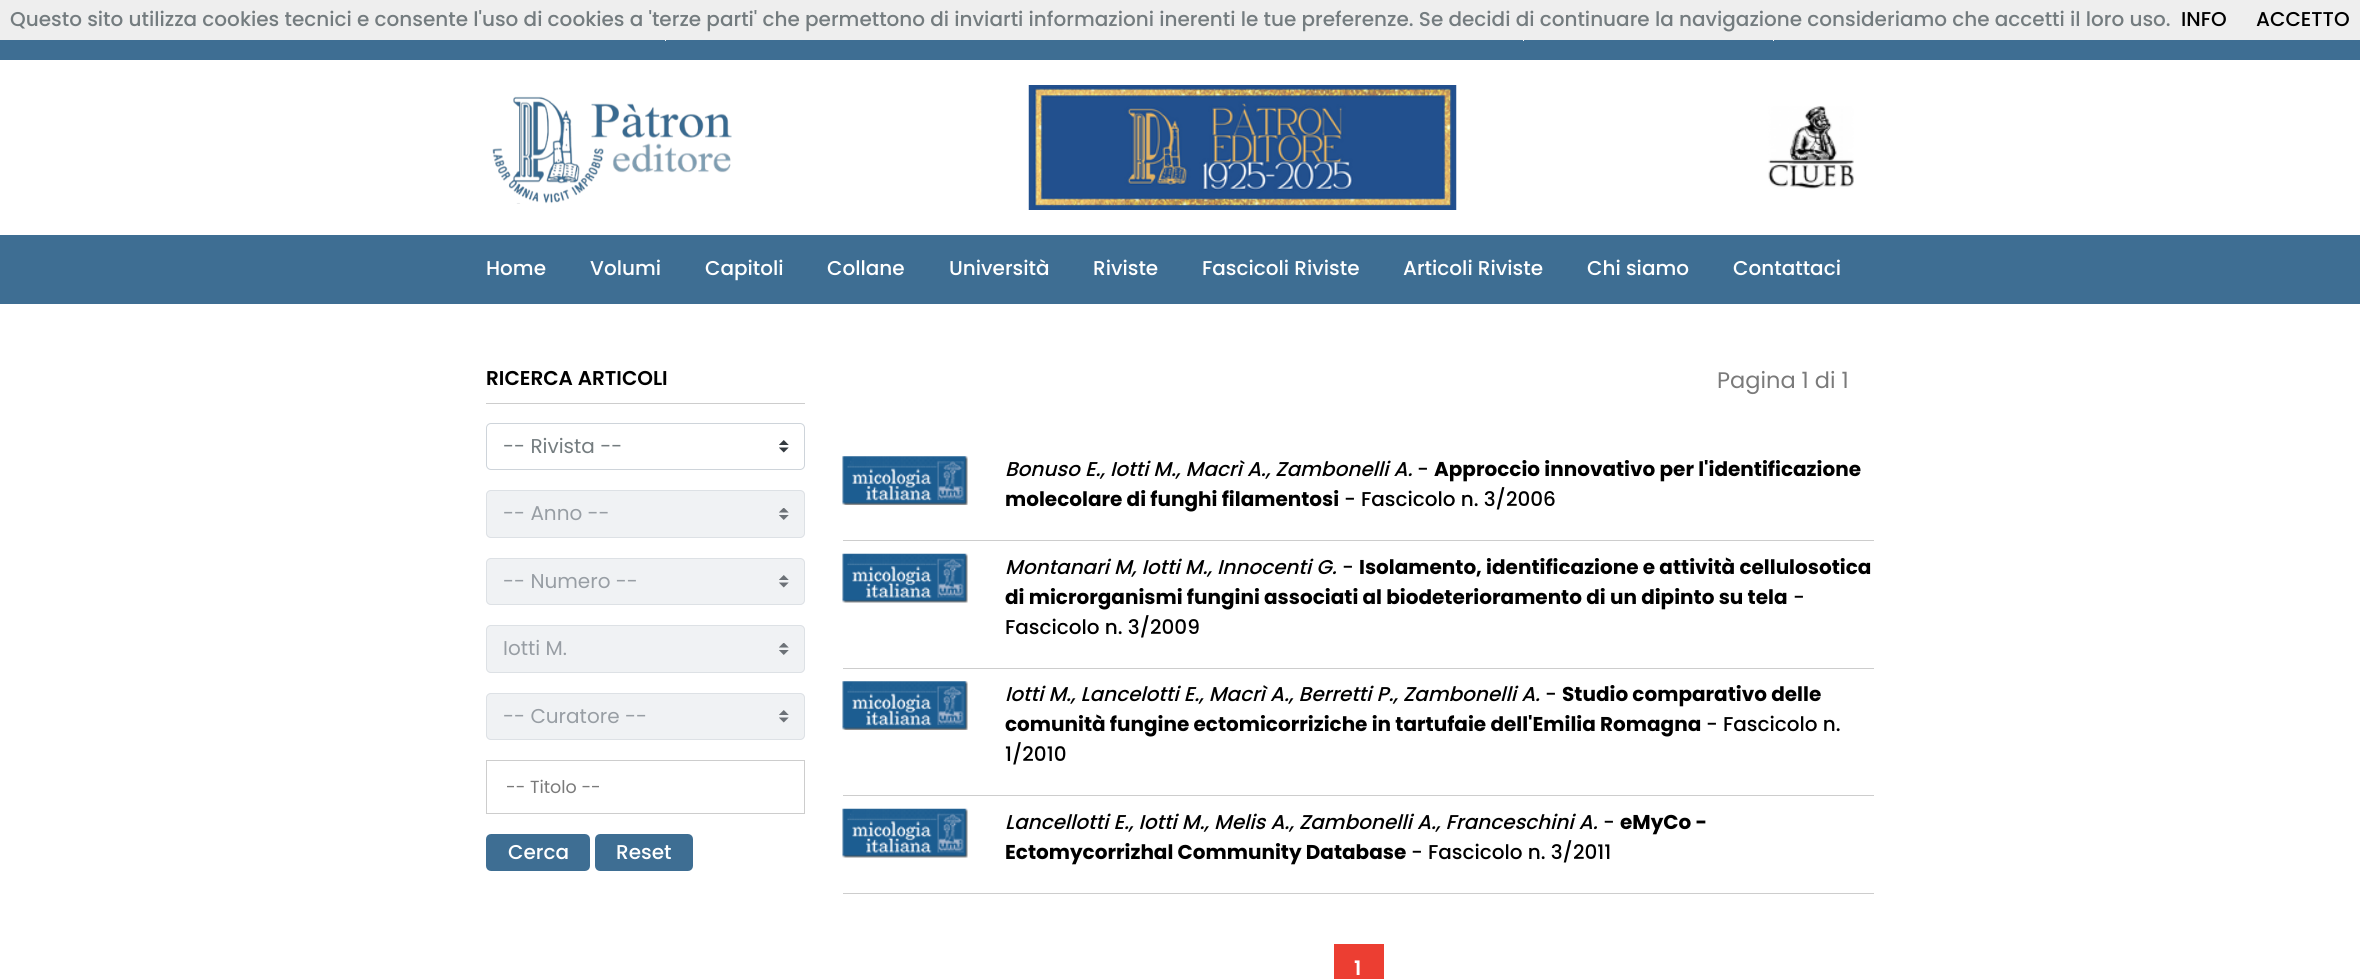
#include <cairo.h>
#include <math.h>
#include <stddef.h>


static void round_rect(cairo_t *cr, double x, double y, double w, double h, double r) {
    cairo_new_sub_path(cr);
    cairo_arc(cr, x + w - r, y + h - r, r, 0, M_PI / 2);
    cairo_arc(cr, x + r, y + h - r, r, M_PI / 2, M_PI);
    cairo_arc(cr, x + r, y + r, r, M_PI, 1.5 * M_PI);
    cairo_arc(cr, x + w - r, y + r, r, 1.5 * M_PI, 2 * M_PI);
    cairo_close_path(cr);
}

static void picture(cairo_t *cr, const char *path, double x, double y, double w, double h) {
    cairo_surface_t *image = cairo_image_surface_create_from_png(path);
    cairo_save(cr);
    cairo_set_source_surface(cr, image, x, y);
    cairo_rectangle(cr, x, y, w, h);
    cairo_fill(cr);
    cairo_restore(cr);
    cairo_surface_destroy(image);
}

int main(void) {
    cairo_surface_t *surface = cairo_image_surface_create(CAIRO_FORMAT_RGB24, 2360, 979);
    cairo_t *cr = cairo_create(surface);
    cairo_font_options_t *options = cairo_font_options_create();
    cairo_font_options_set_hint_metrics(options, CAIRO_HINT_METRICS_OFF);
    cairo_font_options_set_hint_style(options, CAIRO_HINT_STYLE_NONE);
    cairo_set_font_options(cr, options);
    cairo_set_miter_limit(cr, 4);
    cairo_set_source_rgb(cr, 1, 1, 1);
    cairo_paint(cr);
    cairo_set_source_rgb(cr, 0.933, 0.933, 0.933);
    cairo_rectangle(cr, 0, 0, 2360, 40);
    cairo_fill(cr);
    cairo_select_font_face(cr, "Poppins Medium", CAIRO_FONT_SLANT_NORMAL, CAIRO_FONT_WEIGHT_NORMAL);
    cairo_set_font_size(cr, 20);
    cairo_set_source_rgb(cr, 0.455, 0.486, 0.498);
    cairo_move_to(cr, 10, 26);
    cairo_show_text(cr, "Questo sito utilizza cookies tecnici e consente l'uso di cookies a 'terze parti' che permettono di inviarti informazioni inerenti le tue preferenze. Se decidi di continuare la navigazione consideriamo che accetti il loro uso.");
    cairo_set_source_rgb(cr, 0, 0, 0);
    cairo_move_to(cr, 2181, 26);
    cairo_show_text(cr, "INFO");
    cairo_move_to(cr, 2256, 26);
    cairo_show_text(cr, "ACCETTO");
    cairo_set_source_rgb(cr, 0.243, 0.431, 0.576);
    cairo_rectangle(cr, 0, 40, 2360, 20);
    cairo_fill(cr);
    cairo_set_source_rgb(cr, 1, 1, 1);
    cairo_rectangle(cr, 665, 40, 1, 1);
    cairo_fill(cr);
    cairo_rectangle(cr, 1523, 40, 1, 1);
    cairo_fill(cr);
    cairo_rectangle(cr, 1773, 40, 1, 1);
    cairo_fill(cr);
    picture(cr, "img1.png", 492, 96, 240, 108);
    picture(cr, "img2.png", 1028, 85, 429, 125);
    picture(cr, "img3.png", 1768, 106, 86, 83);
    cairo_set_source_rgb(cr, 0.243, 0.431, 0.576);
    cairo_rectangle(cr, 0, 235, 2360, 69);
    cairo_fill(cr);
    cairo_set_source_rgb(cr, 1, 1, 1);
    cairo_move_to(cr, 486, 275);
    cairo_show_text(cr, "Home");
    cairo_move_to(cr, 590, 275);
    cairo_show_text(cr, "Volumi");
    cairo_move_to(cr, 705, 275);
    cairo_show_text(cr, "Capitoli");
    cairo_move_to(cr, 827, 275);
    cairo_show_text(cr, "Collane");
    cairo_move_to(cr, 949, 275);
    cairo_show_text(cr, "Università");
    cairo_move_to(cr, 1093, 275);
    cairo_show_text(cr, "Riviste");
    cairo_move_to(cr, 1202, 275);
    cairo_show_text(cr, "Fascicoli Riviste");
    cairo_move_to(cr, 1403, 275);
    cairo_show_text(cr, "Articoli Riviste");
    cairo_move_to(cr, 1587, 275);
    cairo_show_text(cr, "Chi siamo");
    cairo_move_to(cr, 1733, 275);
    cairo_show_text(cr, "Contattaci");
    cairo_set_source_rgb(cr, 0.804, 0.804, 0.804);
    cairo_rectangle(cr, 486, 403, 319, 1);
    cairo_fill(cr);
    cairo_select_font_face(cr, "Poppins SemiBold", CAIRO_FONT_SLANT_NORMAL, CAIRO_FONT_WEIGHT_NORMAL);
    cairo_set_source_rgb(cr, 0, 0, 0);
    cairo_move_to(cr, 486, 385);
    cairo_show_text(cr, "RICERCA ARTICOLI");
    picture(cr, "img4.png", 779, 440, 10, 13);
    round_rect(cr, 486.5, 423.5, 318, 46, 4.5);
    cairo_set_source_rgb(cr, 0.808, 0.831, 0.855);
    cairo_set_line_width(cr, 1);
    cairo_stroke(cr);
    cairo_select_font_face(cr, "Poppins", CAIRO_FONT_SLANT_NORMAL, CAIRO_FONT_WEIGHT_NORMAL);
    cairo_set_source_rgb(cr, 0.455, 0.486, 0.498);
    cairo_move_to(cr, 503, 453);
    cairo_show_text(cr, "-- Rivista --");
    cairo_set_source_rgb(cr, 0.941, 0.949, 0.957);
    round_rect(cr, 486, 490, 319, 48, 5);
    cairo_fill(cr);
    picture(cr, "img5.png", 779, 508, 10, 12);
    round_rect(cr, 486.5, 490.5, 318, 47, 4.5);
    cairo_set_source_rgb(cr, 0.867, 0.882, 0.898);
    cairo_stroke(cr);
    cairo_set_source_rgb(cr, 0.596, 0.62, 0.643);
    cairo_move_to(cr, 503, 520);
    cairo_show_text(cr, "-- Anno --");
    cairo_set_source_rgb(cr, 0.941, 0.949, 0.957);
    round_rect(cr, 486, 558, 319, 47, 5);
    cairo_fill(cr);
    picture(cr, "img6.png", 779, 575, 10, 13);
    round_rect(cr, 486.5, 558.5, 318, 46, 4.5);
    cairo_set_source_rgb(cr, 0.867, 0.882, 0.898);
    cairo_stroke(cr);
    cairo_set_source_rgb(cr, 0.596, 0.62, 0.643);
    cairo_move_to(cr, 503, 588);
    cairo_show_text(cr, "-- Numero --");
    cairo_set_source_rgb(cr, 0.941, 0.949, 0.957);
    round_rect(cr, 486, 625, 319, 48, 5);
    cairo_fill(cr);
    picture(cr, "img5.png", 779, 643, 10, 12);
    round_rect(cr, 486.5, 625.5, 318, 47, 4.5);
    cairo_set_source_rgb(cr, 0.867, 0.882, 0.898);
    cairo_stroke(cr);
    cairo_set_source_rgb(cr, 0.596, 0.62, 0.643);
    cairo_move_to(cr, 503, 655);
    cairo_show_text(cr, "Iotti M.");
    cairo_set_source_rgb(cr, 0.941, 0.949, 0.957);
    round_rect(cr, 486, 693, 319, 47, 5);
    cairo_fill(cr);
    picture(cr, "img6.png", 779, 710, 10, 13);
    round_rect(cr, 486.5, 693.5, 318, 46, 4.5);
    cairo_set_source_rgb(cr, 0.867, 0.882, 0.898);
    cairo_stroke(cr);
    cairo_set_source_rgb(cr, 0.596, 0.62, 0.643);
    cairo_move_to(cr, 503, 723);
    cairo_show_text(cr, "-- Curatore --");
    cairo_rectangle(cr, 486.5, 760.5, 318, 53);
    cairo_set_source_rgb(cr, 0.804, 0.804, 0.804);
    cairo_stroke(cr);
    cairo_set_font_size(cr, 17.5);
    cairo_set_source_rgb(cr, 0.478, 0.478, 0.478);
    cairo_move_to(cr, 506, 793);
    cairo_show_text(cr, "-- Titolo --");
    cairo_set_source_rgb(cr, 0.243, 0.431, 0.576);
    round_rect(cr, 487.5, 835.5, 101, 34, 3.5);
    cairo_fill_preserve(cr);
    cairo_set_line_width(cr, 3);
    cairo_stroke(cr);
    cairo_select_font_face(cr, "Poppins Medium", CAIRO_FONT_SLANT_NORMAL, CAIRO_FONT_WEIGHT_NORMAL);
    cairo_set_font_size(cr, 20);
    cairo_set_source_rgb(cr, 1, 1, 1);
    cairo_move_to(cr, 508, 859);
    cairo_show_text(cr, "Cerca");
    cairo_set_source_rgb(cr, 0.243, 0.431, 0.576);
    round_rect(cr, 596.5, 835.5, 95, 34, 3.5);
    cairo_fill_preserve(cr);
    cairo_stroke(cr);
    cairo_set_source_rgb(cr, 1, 1, 1);
    cairo_move_to(cr, 616, 859);
    cairo_show_text(cr, "Reset");
    cairo_select_font_face(cr, "Poppins", CAIRO_FONT_SLANT_NORMAL, CAIRO_FONT_WEIGHT_NORMAL);
    cairo_set_font_size(cr, 22.5);
    cairo_set_source_rgb(cr, 0.478, 0.478, 0.478);
    cairo_move_to(cr, 1717, 388);
    cairo_show_text(cr, "Pagina 1 di 1");
    cairo_set_source_rgb(cr, 0.804, 0.804, 0.804);
    cairo_rectangle(cr, 843, 540, 1031, 1);
    cairo_fill(cr);
    picture(cr, "img7.png", 842, 456, 126, 49);
    cairo_select_font_face(cr, "Poppins Medium", CAIRO_FONT_SLANT_ITALIC, CAIRO_FONT_WEIGHT_NORMAL);
    cairo_set_font_size(cr, 20);
    cairo_set_source_rgb(cr, 0, 0, 0);
    cairo_move_to(cr, 1005, 476);
    cairo_show_text(cr, "Bonuso E., Iotti M., Macrì A., Zambonelli A.");
    cairo_select_font_face(cr, "Poppins Medium", CAIRO_FONT_SLANT_NORMAL, CAIRO_FONT_WEIGHT_NORMAL);
    cairo_move_to(cr, 1417, 476);
    cairo_show_text(cr, "-");
    cairo_select_font_face(cr, "Poppins", CAIRO_FONT_SLANT_NORMAL, CAIRO_FONT_WEIGHT_BOLD);
    cairo_move_to(cr, 1434, 476);
    cairo_show_text(cr, "Approccio innovativo per l'identificazione");
    cairo_move_to(cr, 1005, 506);
    cairo_show_text(cr, "molecolare di funghi filamentosi");
    cairo_select_font_face(cr, "Poppins Medium", CAIRO_FONT_SLANT_NORMAL, CAIRO_FONT_WEIGHT_NORMAL);
    cairo_move_to(cr, 1344, 506);
    cairo_show_text(cr, "- Fascicolo n. 3/2006");
    cairo_set_source_rgb(cr, 0.804, 0.804, 0.804);
    cairo_rectangle(cr, 843, 668, 1031, 1);
    cairo_fill(cr);
    picture(cr, "img8.png", 842, 553, 126, 50);
    cairo_select_font_face(cr, "Poppins Medium", CAIRO_FONT_SLANT_ITALIC, CAIRO_FONT_WEIGHT_NORMAL);
    cairo_set_source_rgb(cr, 0, 0, 0);
    cairo_move_to(cr, 1005, 574);
    cairo_show_text(cr, "Montanari M, Iotti M., Innocenti G.");
    cairo_select_font_face(cr, "Poppins Medium", CAIRO_FONT_SLANT_NORMAL, CAIRO_FONT_WEIGHT_NORMAL);
    cairo_move_to(cr, 1342, 574);
    cairo_show_text(cr, "-");
    cairo_select_font_face(cr, "Poppins", CAIRO_FONT_SLANT_NORMAL, CAIRO_FONT_WEIGHT_BOLD);
    cairo_move_to(cr, 1359, 574);
    cairo_show_text(cr, "Isolamento, identificazione e attività cellulosotica");
    cairo_move_to(cr, 1005, 604);
    cairo_show_text(cr, "di microrganismi fungini associati al biodeterioramento di un dipinto su tela");
    cairo_select_font_face(cr, "Poppins Medium", CAIRO_FONT_SLANT_NORMAL, CAIRO_FONT_WEIGHT_NORMAL);
    cairo_move_to(cr, 1793, 604);
    cairo_show_text(cr, "-");
    cairo_move_to(cr, 1005, 634);
    cairo_show_text(cr, "Fascicolo n. 3/2009");
    cairo_set_source_rgb(cr, 0.804, 0.804, 0.804);
    cairo_rectangle(cr, 843, 795, 1031, 1);
    cairo_fill(cr);
    picture(cr, "img7.png", 842, 681, 126, 49);
    cairo_select_font_face(cr, "Poppins Medium", CAIRO_FONT_SLANT_ITALIC, CAIRO_FONT_WEIGHT_NORMAL);
    cairo_set_source_rgb(cr, 0, 0, 0);
    cairo_move_to(cr, 1005, 701);
    cairo_show_text(cr, "Iotti M., Lancelotti E., Macrì A., Berretti P., Zambonelli A.");
    cairo_select_font_face(cr, "Poppins Medium", CAIRO_FONT_SLANT_NORMAL, CAIRO_FONT_WEIGHT_NORMAL);
    cairo_move_to(cr, 1545, 701);
    cairo_show_text(cr, "-");
    cairo_select_font_face(cr, "Poppins", CAIRO_FONT_SLANT_NORMAL, CAIRO_FONT_WEIGHT_BOLD);
    cairo_move_to(cr, 1562, 701);
    cairo_show_text(cr, "Studio comparativo delle");
    cairo_move_to(cr, 1005, 731);
    cairo_show_text(cr, "comunità fungine ectomicorriziche in tartufaie dell'Emilia Romagna");
    cairo_select_font_face(cr, "Poppins Medium", CAIRO_FONT_SLANT_NORMAL, CAIRO_FONT_WEIGHT_NORMAL);
    cairo_move_to(cr, 1706, 731);
    cairo_show_text(cr, "- Fascicolo n.");
    cairo_move_to(cr, 1005, 761);
    cairo_show_text(cr, "1/2010");
    cairo_set_source_rgb(cr, 0.804, 0.804, 0.804);
    cairo_rectangle(cr, 843, 893, 1031, 1);
    cairo_fill(cr);
    picture(cr, "img9.png", 842, 808, 126, 50);
    cairo_select_font_face(cr, "Poppins Medium", CAIRO_FONT_SLANT_ITALIC, CAIRO_FONT_WEIGHT_NORMAL);
    cairo_set_source_rgb(cr, 0, 0, 0);
    cairo_move_to(cr, 1005, 829);
    cairo_show_text(cr, "Lancellotti E., Iotti M., Melis A., Zambonelli A., Franceschini A.");
    cairo_select_font_face(cr, "Poppins Medium", CAIRO_FONT_SLANT_NORMAL, CAIRO_FONT_WEIGHT_NORMAL);
    cairo_move_to(cr, 1603, 829);
    cairo_show_text(cr, "-");
    cairo_select_font_face(cr, "Poppins", CAIRO_FONT_SLANT_NORMAL, CAIRO_FONT_WEIGHT_BOLD);
    cairo_move_to(cr, 1620, 829);
    cairo_show_text(cr, "eMyCo -");
    cairo_move_to(cr, 1005, 859);
    cairo_show_text(cr, "Ectomycorrizhal Community Database");
    cairo_select_font_face(cr, "Poppins Medium", CAIRO_FONT_SLANT_NORMAL, CAIRO_FONT_WEIGHT_NORMAL);
    cairo_move_to(cr, 1411, 859);
    cairo_show_text(cr, "- Fascicolo n. 3/2011");
    cairo_set_source_rgb(cr, 0.922, 0.243, 0.196);
    cairo_rectangle(cr, 1334, 944, 50, 35);
    cairo_fill(cr);
    cairo_select_font_face(cr, "Poppins SemiBold", CAIRO_FONT_SLANT_NORMAL, CAIRO_FONT_WEIGHT_NORMAL);
    cairo_set_source_rgb(cr, 1, 1, 1);
    cairo_move_to(cr, 1354, 975);
    cairo_show_text(cr, "1");
    cairo_surface_write_to_png(surface, "page.png");
    cairo_font_options_destroy(options);
    cairo_destroy(cr);
    cairo_surface_destroy(surface);
    return 0;
}
